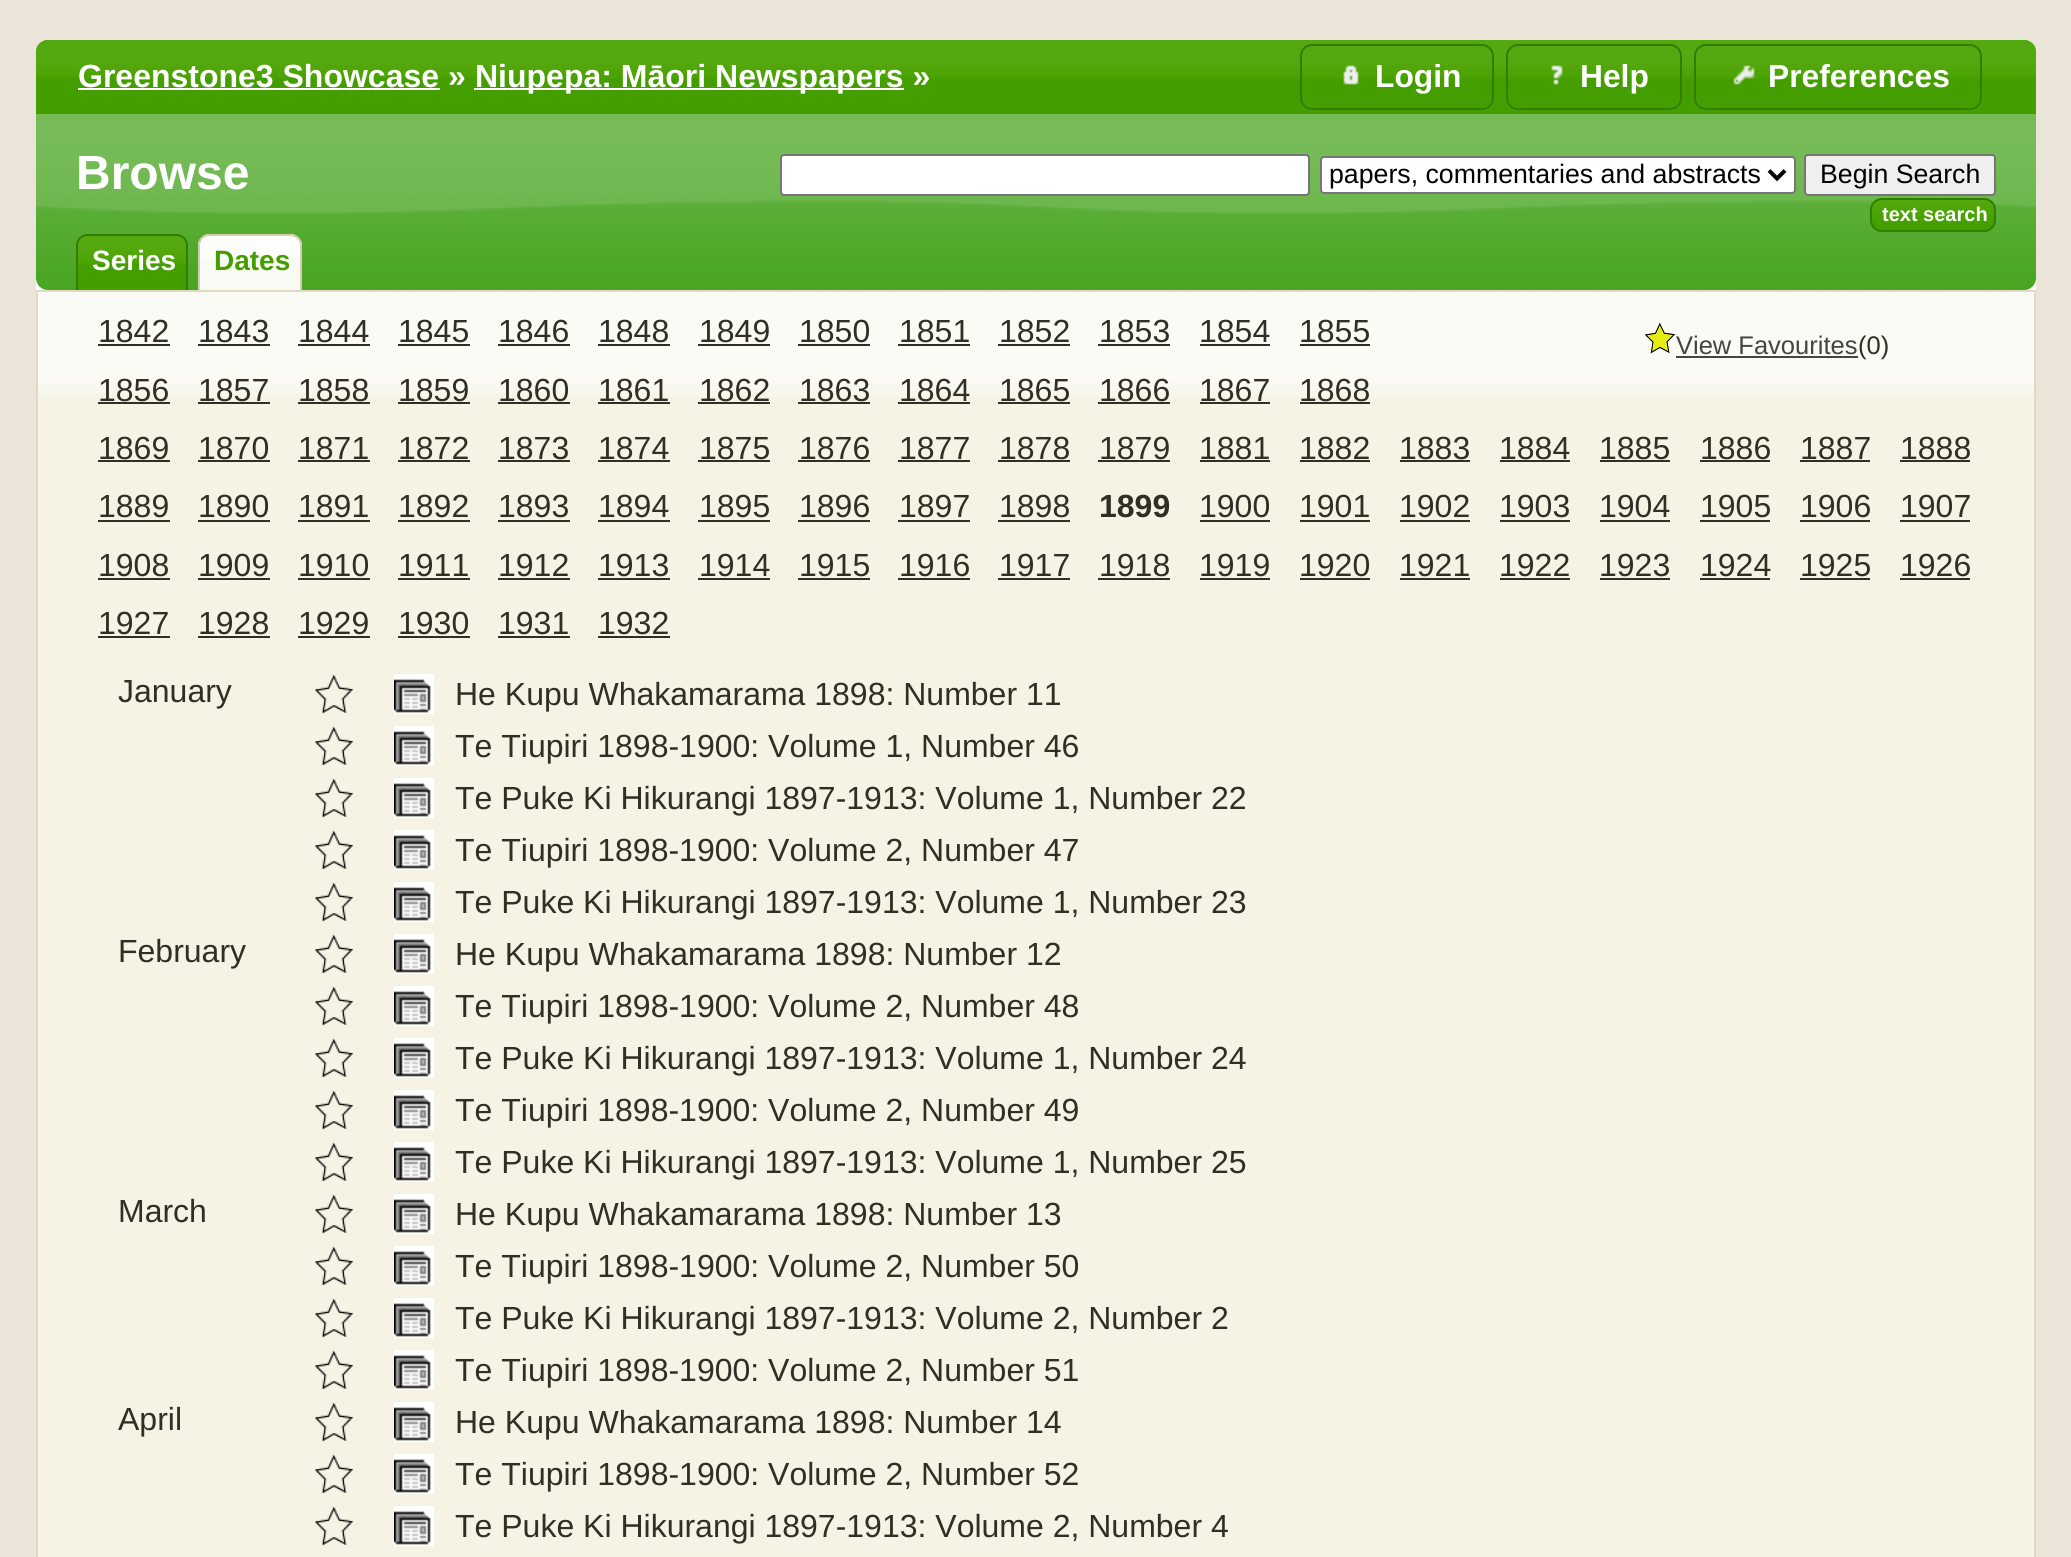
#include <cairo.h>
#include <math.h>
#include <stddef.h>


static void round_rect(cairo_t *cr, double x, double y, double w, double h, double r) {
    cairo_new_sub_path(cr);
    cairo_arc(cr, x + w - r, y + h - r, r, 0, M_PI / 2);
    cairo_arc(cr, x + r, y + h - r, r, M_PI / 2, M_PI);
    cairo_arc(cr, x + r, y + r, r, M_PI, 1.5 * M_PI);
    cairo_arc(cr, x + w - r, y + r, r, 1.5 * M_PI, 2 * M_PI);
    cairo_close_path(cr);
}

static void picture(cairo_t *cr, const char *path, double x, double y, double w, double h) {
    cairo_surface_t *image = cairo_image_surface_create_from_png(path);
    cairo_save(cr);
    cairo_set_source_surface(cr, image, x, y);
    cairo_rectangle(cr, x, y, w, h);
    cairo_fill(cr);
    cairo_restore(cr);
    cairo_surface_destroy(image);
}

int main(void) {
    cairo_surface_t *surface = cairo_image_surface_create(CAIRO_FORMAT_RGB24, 2071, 1557);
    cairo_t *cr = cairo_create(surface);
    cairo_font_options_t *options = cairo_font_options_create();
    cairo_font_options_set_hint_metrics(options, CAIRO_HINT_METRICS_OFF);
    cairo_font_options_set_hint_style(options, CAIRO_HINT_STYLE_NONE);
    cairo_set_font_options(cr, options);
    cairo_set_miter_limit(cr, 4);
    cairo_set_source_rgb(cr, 0.918, 0.894, 0.851);
    cairo_paint(cr);
    cairo_set_source_rgb(cr, 0.271, 0.62, 0);
    cairo_new_path(cr);
    cairo_move_to(cr, 48, 40);
    cairo_line_to(cr, 2024, 40);
    cairo_curve_to(cr, 2030.5, 40, 2036, 45.5, 2036, 52);
    cairo_line_to(cr, 2036, 114);
    cairo_line_to(cr, 36, 114);
    cairo_line_to(cr, 36, 52);
    cairo_curve_to(cr, 36, 45.5, 41.5, 40, 48, 40);
    cairo_close_path(cr);
    cairo_fill(cr);
    picture(cr, "img1.png", 36, 40, 2000, 38);
    cairo_select_font_face(cr, "Liberation Sans", CAIRO_FONT_SLANT_NORMAL, CAIRO_FONT_WEIGHT_BOLD);
    cairo_set_font_size(cr, 32);
    cairo_set_source_rgb(cr, 1, 1, 1);
    cairo_move_to(cr, 78, 87);
    cairo_show_text(cr, "Greenstone3 Showcase »");
    cairo_rectangle(cr, 78, 88, 362, 2);
    cairo_fill(cr);
    cairo_rectangle(cr, 474, 88, 430, 2);
    cairo_fill(cr);
    cairo_move_to(cr, 475, 87);
    cairo_show_text(cr, "Niupepa: Māori Newspapers »");
    cairo_set_source_rgb(cr, 0.271, 0.62, 0);
    round_rect(cr, 1300, 44, 194, 66, 12);
    cairo_fill(cr);
    picture(cr, "img2.png", 1300, 44, 194, 34);
    round_rect(cr, 1301, 45, 192, 64, 11);
    cairo_set_source_rgb(cr, 0.196, 0.494, 0.016);
    cairo_stroke(cr);
    picture(cr, "img3.png", 1343, 65, 16, 20);
    cairo_set_font_size(cr, 31.75);
    cairo_set_source_rgb(cr, 1, 1, 1);
    cairo_move_to(cr, 1375, 87);
    cairo_show_text(cr, "Login");
    cairo_set_source_rgb(cr, 0.271, 0.62, 0);
    round_rect(cr, 1506, 44, 176, 66, 12);
    cairo_fill(cr);
    picture(cr, "img4.png", 1506, 44, 176, 34);
    round_rect(cr, 1507, 45, 174, 64, 11);
    cairo_set_source_rgb(cr, 0.196, 0.494, 0.016);
    cairo_stroke(cr);
    picture(cr, "img5.png", 1551, 65, 12, 20);
    cairo_set_source_rgb(cr, 1, 1, 1);
    cairo_move_to(cr, 1580, 87);
    cairo_show_text(cr, "Help");
    cairo_set_source_rgb(cr, 0.271, 0.62, 0);
    round_rect(cr, 1694, 44, 288, 66, 12);
    cairo_fill(cr);
    picture(cr, "img6.png", 1694, 44, 288, 34);
    round_rect(cr, 1695, 45, 286, 64, 11);
    cairo_set_source_rgb(cr, 0.196, 0.494, 0.016);
    cairo_stroke(cr);
    picture(cr, "img7.png", 1733, 65, 22, 20);
    cairo_set_source_rgb(cr, 1, 1, 1);
    cairo_move_to(cr, 1768, 87);
    cairo_show_text(cr, "Preferences");
    cairo_rectangle(cr, 36, 278, 2000, 12);
    cairo_fill(cr);
    picture(cr, "img8.png", 36, 114, 2000, 176);
    cairo_set_font_size(cr, 48);
    cairo_move_to(cr, 76, 189);
    cairo_show_text(cr, "Browse");
    round_rect(cr, 781, 155, 528, 40, 3);
    cairo_fill_preserve(cr);
    cairo_set_source_rgb(cr, 0.463, 0.463, 0.463);
    cairo_stroke(cr);
    cairo_set_source_rgb(cr, 1, 1, 1);
    round_rect(cr, 1321, 157, 474, 36, 3);
    cairo_fill_preserve(cr);
    cairo_set_source_rgb(cr, 0.463, 0.463, 0.463);
    cairo_stroke(cr);
    cairo_new_path(cr);
    cairo_move_to(cr, 1769, 170.5);
    cairo_line_to(cr, 1777, 178.5);
    cairo_line_to(cr, 1785, 170.5);
    cairo_set_source_rgb(cr, 0, 0, 0);
    cairo_set_line_width(cr, 4);
    cairo_stroke(cr);
    cairo_select_font_face(cr, "Liberation Sans", CAIRO_FONT_SLANT_NORMAL, CAIRO_FONT_WEIGHT_NORMAL);
    cairo_set_font_size(cr, 26.7);
    cairo_move_to(cr, 1329, 183);
    cairo_show_text(cr, "papers, commentaries and abstracts");
    cairo_set_source_rgb(cr, 0.937, 0.937, 0.937);
    round_rect(cr, 1805, 155, 190, 40, 3);
    cairo_fill_preserve(cr);
    cairo_set_source_rgb(cr, 0.463, 0.463, 0.463);
    cairo_set_line_width(cr, 2);
    cairo_stroke(cr);
    cairo_set_source_rgb(cr, 0, 0, 0);
    cairo_move_to(cr, 1820, 183);
    cairo_show_text(cr, "Begin Search");
    picture(cr, "img9.png", 1870, 198, 126, 34);
    round_rect(cr, 1871, 199, 124, 32, 11);
    cairo_set_source_rgb(cr, 0.196, 0.494, 0.016);
    cairo_stroke(cr);
    cairo_select_font_face(cr, "Liberation Sans", CAIRO_FONT_SLANT_NORMAL, CAIRO_FONT_WEIGHT_BOLD);
    cairo_set_font_size(cr, 20);
    cairo_set_source_rgb(cr, 1, 1, 1);
    cairo_move_to(cr, 1882, 221);
    cairo_show_text(cr, "text search");
    cairo_set_source_rgb(cr, 0.271, 0.62, 0);
    cairo_new_path(cr);
    cairo_move_to(cr, 88, 234);
    cairo_line_to(cr, 176, 234);
    cairo_curve_to(cr, 182.5, 234, 188, 239.5, 188, 246);
    cairo_line_to(cr, 188, 290);
    cairo_line_to(cr, 76, 290);
    cairo_line_to(cr, 76, 246);
    cairo_curve_to(cr, 76, 239.5, 81.5, 234, 88, 234);
    cairo_close_path(cr);
    cairo_fill(cr);
    picture(cr, "img10.png", 76, 234, 112, 30);
    cairo_set_source_rgb(cr, 0.196, 0.494, 0.016);
    cairo_set_fill_rule(cr, CAIRO_FILL_RULE_EVEN_ODD);
    cairo_new_path(cr);
    cairo_move_to(cr, 88, 234);
    cairo_line_to(cr, 176, 234);
    cairo_curve_to(cr, 183, 234, 188, 239, 188, 246);
    cairo_line_to(cr, 188, 290);
    cairo_line_to(cr, 76, 290);
    cairo_line_to(cr, 76, 246);
    cairo_curve_to(cr, 76, 239, 81, 234, 88, 234);
    cairo_close_path(cr);
    cairo_move_to(cr, 88, 236);
    cairo_line_to(cr, 176, 236);
    cairo_curve_to(cr, 182, 236, 186, 240, 186, 246);
    cairo_line_to(cr, 186, 290);
    cairo_line_to(cr, 78, 290);
    cairo_line_to(cr, 78, 246);
    cairo_curve_to(cr, 78, 240, 82, 236, 88, 236);
    cairo_close_path(cr);
    cairo_fill(cr);
    cairo_set_font_size(cr, 28);
    cairo_set_source_rgb(cr, 1, 1, 1);
    cairo_move_to(cr, 92, 270);
    cairo_show_text(cr, "Series");
    cairo_set_source_rgb(cr, 0.98, 0.98, 0.957);
    cairo_new_path(cr);
    cairo_move_to(cr, 210, 234);
    cairo_line_to(cr, 290, 234);
    cairo_curve_to(cr, 296.5, 234, 302, 239.5, 302, 246);
    cairo_line_to(cr, 302, 290);
    cairo_line_to(cr, 198, 290);
    cairo_line_to(cr, 198, 246);
    cairo_curve_to(cr, 198, 239.5, 203.5, 234, 210, 234);
    cairo_close_path(cr);
    cairo_fill(cr);
    picture(cr, "img11.png", 198, 234, 104, 24);
    cairo_set_source_rgb(cr, 0.831, 0.8, 0.69);
    cairo_new_path(cr);
    cairo_move_to(cr, 210, 234);
    cairo_line_to(cr, 290, 234);
    cairo_curve_to(cr, 297, 234, 302, 239, 302, 246);
    cairo_line_to(cr, 302, 290);
    cairo_line_to(cr, 198, 290);
    cairo_line_to(cr, 198, 246);
    cairo_curve_to(cr, 198, 239, 203, 234, 210, 234);
    cairo_close_path(cr);
    cairo_move_to(cr, 210, 236);
    cairo_line_to(cr, 290, 236);
    cairo_curve_to(cr, 296, 236, 300, 240, 300, 246);
    cairo_line_to(cr, 300, 290);
    cairo_line_to(cr, 200, 290);
    cairo_line_to(cr, 200, 246);
    cairo_curve_to(cr, 200, 240, 204, 236, 210, 236);
    cairo_close_path(cr);
    cairo_fill(cr);
    cairo_set_source_rgb(cr, 0.271, 0.62, 0);
    cairo_move_to(cr, 214, 270);
    cairo_show_text(cr, "Dates");
    cairo_set_source_rgb(cr, 0.961, 0.953, 0.898);
    cairo_rectangle(cr, 38, 397, 1996, 1160);
    cairo_fill(cr);
    picture(cr, "img12.png", 38, 292, 1996, 105);
    cairo_rectangle(cr, 37, 291, 1998, 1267);
    cairo_set_source_rgb(cr, 0.875, 0.851, 0.765);
    cairo_stroke(cr);
    cairo_select_font_face(cr, "Liberation Sans", CAIRO_FONT_SLANT_NORMAL, CAIRO_FONT_WEIGHT_NORMAL);
    cairo_set_font_size(cr, 32);
    cairo_set_source_rgb(cr, 0.192, 0.18, 0.145);
    cairo_move_to(cr, 98, 342);
    cairo_show_text(cr, "1842");
    cairo_rectangle(cr, 98, 344, 72, 2);
    cairo_fill(cr);
    cairo_move_to(cr, 198, 342);
    cairo_show_text(cr, "1843");
    cairo_rectangle(cr, 198, 344, 72, 2);
    cairo_fill(cr);
    cairo_move_to(cr, 298, 342);
    cairo_show_text(cr, "1844");
    cairo_rectangle(cr, 298, 344, 72, 2);
    cairo_fill(cr);
    cairo_move_to(cr, 398, 342);
    cairo_show_text(cr, "1845");
    cairo_rectangle(cr, 398, 344, 72, 2);
    cairo_fill(cr);
    cairo_move_to(cr, 498, 342);
    cairo_show_text(cr, "1846");
    cairo_rectangle(cr, 498, 344, 72, 2);
    cairo_fill(cr);
    cairo_move_to(cr, 598, 342);
    cairo_show_text(cr, "1848");
    cairo_rectangle(cr, 598, 344, 72, 2);
    cairo_fill(cr);
    cairo_move_to(cr, 699, 342);
    cairo_show_text(cr, "1849");
    cairo_rectangle(cr, 698, 344, 72, 2);
    cairo_fill(cr);
    cairo_move_to(cr, 799, 342);
    cairo_show_text(cr, "1850");
    cairo_rectangle(cr, 798, 344, 72, 2);
    cairo_fill(cr);
    cairo_move_to(cr, 899, 342);
    cairo_show_text(cr, "1851");
    cairo_rectangle(cr, 898, 344, 72, 2);
    cairo_fill(cr);
    cairo_move_to(cr, 999, 342);
    cairo_show_text(cr, "1852");
    cairo_rectangle(cr, 998, 344, 72, 2);
    cairo_fill(cr);
    cairo_move_to(cr, 1099, 342);
    cairo_show_text(cr, "1853");
    cairo_rectangle(cr, 1098, 344, 72, 2);
    cairo_fill(cr);
    cairo_move_to(cr, 1199, 342);
    cairo_show_text(cr, "1854");
    cairo_rectangle(cr, 1200, 344, 70, 2);
    cairo_fill(cr);
    cairo_move_to(cr, 1299, 342);
    cairo_show_text(cr, "1855");
    cairo_rectangle(cr, 1300, 344, 70, 2);
    cairo_fill(cr);
    cairo_move_to(cr, 98, 401);
    cairo_show_text(cr, "1856");
    cairo_rectangle(cr, 98, 402, 72, 2);
    cairo_fill(cr);
    cairo_move_to(cr, 198, 401);
    cairo_show_text(cr, "1857");
    cairo_rectangle(cr, 198, 402, 72, 2);
    cairo_fill(cr);
    cairo_move_to(cr, 298, 401);
    cairo_show_text(cr, "1858");
    cairo_rectangle(cr, 298, 402, 72, 2);
    cairo_fill(cr);
    cairo_move_to(cr, 398, 401);
    cairo_show_text(cr, "1859");
    cairo_rectangle(cr, 398, 402, 72, 2);
    cairo_fill(cr);
    cairo_move_to(cr, 498, 401);
    cairo_show_text(cr, "1860");
    cairo_rectangle(cr, 498, 402, 72, 2);
    cairo_fill(cr);
    cairo_move_to(cr, 598, 401);
    cairo_show_text(cr, "1861");
    cairo_rectangle(cr, 598, 402, 72, 2);
    cairo_fill(cr);
    cairo_move_to(cr, 699, 401);
    cairo_show_text(cr, "1862");
    cairo_rectangle(cr, 698, 402, 72, 2);
    cairo_fill(cr);
    cairo_move_to(cr, 799, 401);
    cairo_show_text(cr, "1863");
    cairo_rectangle(cr, 798, 402, 72, 2);
    cairo_fill(cr);
    cairo_move_to(cr, 899, 401);
    cairo_show_text(cr, "1864");
    cairo_rectangle(cr, 898, 402, 72, 2);
    cairo_fill(cr);
    cairo_move_to(cr, 999, 401);
    cairo_show_text(cr, "1865");
    cairo_rectangle(cr, 998, 402, 72, 2);
    cairo_fill(cr);
    cairo_move_to(cr, 1099, 401);
    cairo_show_text(cr, "1866");
    cairo_rectangle(cr, 1098, 402, 72, 2);
    cairo_fill(cr);
    cairo_move_to(cr, 1199, 401);
    cairo_show_text(cr, "1867");
    cairo_rectangle(cr, 1200, 402, 70, 2);
    cairo_fill(cr);
    cairo_move_to(cr, 1299, 401);
    cairo_show_text(cr, "1868");
    cairo_rectangle(cr, 1300, 402, 70, 2);
    cairo_fill(cr);
    cairo_move_to(cr, 98, 459);
    cairo_show_text(cr, "1869");
    cairo_rectangle(cr, 98, 460, 72, 2);
    cairo_fill(cr);
    cairo_move_to(cr, 198, 459);
    cairo_show_text(cr, "1870");
    cairo_rectangle(cr, 198, 460, 72, 2);
    cairo_fill(cr);
    cairo_move_to(cr, 298, 459);
    cairo_show_text(cr, "1871");
    cairo_rectangle(cr, 298, 460, 72, 2);
    cairo_fill(cr);
    cairo_move_to(cr, 398, 459);
    cairo_show_text(cr, "1872");
    cairo_rectangle(cr, 398, 460, 72, 2);
    cairo_fill(cr);
    cairo_move_to(cr, 498, 459);
    cairo_show_text(cr, "1873");
    cairo_rectangle(cr, 498, 460, 72, 2);
    cairo_fill(cr);
    cairo_move_to(cr, 598, 459);
    cairo_show_text(cr, "1874");
    cairo_rectangle(cr, 598, 460, 72, 2);
    cairo_fill(cr);
    cairo_move_to(cr, 699, 459);
    cairo_show_text(cr, "1875");
    cairo_rectangle(cr, 698, 460, 72, 2);
    cairo_fill(cr);
    cairo_move_to(cr, 799, 459);
    cairo_show_text(cr, "1876");
    cairo_rectangle(cr, 798, 460, 72, 2);
    cairo_fill(cr);
    cairo_move_to(cr, 899, 459);
    cairo_show_text(cr, "1877");
    cairo_rectangle(cr, 898, 460, 72, 2);
    cairo_fill(cr);
    cairo_move_to(cr, 999, 459);
    cairo_show_text(cr, "1878");
    cairo_rectangle(cr, 998, 460, 72, 2);
    cairo_fill(cr);
    cairo_move_to(cr, 1099, 459);
    cairo_show_text(cr, "1879");
    cairo_rectangle(cr, 1098, 460, 72, 2);
    cairo_fill(cr);
    cairo_move_to(cr, 1199, 459);
    cairo_show_text(cr, "1881");
    cairo_rectangle(cr, 1200, 460, 70, 2);
    cairo_fill(cr);
    cairo_move_to(cr, 1299, 459);
    cairo_show_text(cr, "1882");
    cairo_rectangle(cr, 1300, 460, 70, 2);
    cairo_fill(cr);
    cairo_move_to(cr, 1399, 459);
    cairo_show_text(cr, "1883");
    cairo_rectangle(cr, 1400, 460, 70, 2);
    cairo_fill(cr);
    cairo_move_to(cr, 1499, 459);
    cairo_show_text(cr, "1884");
    cairo_rectangle(cr, 1500, 460, 70, 2);
    cairo_fill(cr);
    cairo_move_to(cr, 1599, 459);
    cairo_show_text(cr, "1885");
    cairo_rectangle(cr, 1600, 460, 70, 2);
    cairo_fill(cr);
    cairo_move_to(cr, 1700, 459);
    cairo_show_text(cr, "1886");
    cairo_rectangle(cr, 1700, 460, 70, 2);
    cairo_fill(cr);
    cairo_move_to(cr, 1800, 459);
    cairo_show_text(cr, "1887");
    cairo_rectangle(cr, 1800, 460, 70, 2);
    cairo_fill(cr);
    cairo_move_to(cr, 1900, 459);
    cairo_show_text(cr, "1888");
    cairo_rectangle(cr, 1900, 460, 70, 2);
    cairo_fill(cr);
    cairo_move_to(cr, 98, 517);
    cairo_show_text(cr, "1889");
    cairo_rectangle(cr, 98, 520, 72, 2);
    cairo_fill(cr);
    cairo_move_to(cr, 198, 517);
    cairo_show_text(cr, "1890");
    cairo_rectangle(cr, 198, 520, 72, 2);
    cairo_fill(cr);
    cairo_move_to(cr, 298, 517);
    cairo_show_text(cr, "1891");
    cairo_rectangle(cr, 298, 520, 72, 2);
    cairo_fill(cr);
    cairo_move_to(cr, 398, 517);
    cairo_show_text(cr, "1892");
    cairo_rectangle(cr, 398, 520, 72, 2);
    cairo_fill(cr);
    cairo_move_to(cr, 498, 517);
    cairo_show_text(cr, "1893");
    cairo_rectangle(cr, 498, 520, 72, 2);
    cairo_fill(cr);
    cairo_move_to(cr, 598, 517);
    cairo_show_text(cr, "1894");
    cairo_rectangle(cr, 598, 520, 72, 2);
    cairo_fill(cr);
    cairo_move_to(cr, 699, 517);
    cairo_show_text(cr, "1895");
    cairo_rectangle(cr, 698, 520, 72, 2);
    cairo_fill(cr);
    cairo_move_to(cr, 799, 517);
    cairo_show_text(cr, "1896");
    cairo_rectangle(cr, 798, 520, 72, 2);
    cairo_fill(cr);
    cairo_move_to(cr, 899, 517);
    cairo_show_text(cr, "1897");
    cairo_rectangle(cr, 898, 520, 72, 2);
    cairo_fill(cr);
    cairo_move_to(cr, 999, 517);
    cairo_show_text(cr, "1898");
    cairo_rectangle(cr, 998, 520, 72, 2);
    cairo_fill(cr);
    cairo_select_font_face(cr, "Liberation Sans", CAIRO_FONT_SLANT_NORMAL, CAIRO_FONT_WEIGHT_BOLD);
    cairo_move_to(cr, 1099, 517);
    cairo_show_text(cr, "1899");
    cairo_select_font_face(cr, "Liberation Sans", CAIRO_FONT_SLANT_NORMAL, CAIRO_FONT_WEIGHT_NORMAL);
    cairo_move_to(cr, 1199, 517);
    cairo_show_text(cr, "1900");
    cairo_rectangle(cr, 1200, 520, 70, 2);
    cairo_fill(cr);
    cairo_move_to(cr, 1299, 517);
    cairo_show_text(cr, "1901");
    cairo_rectangle(cr, 1300, 520, 70, 2);
    cairo_fill(cr);
    cairo_move_to(cr, 1399, 517);
    cairo_show_text(cr, "1902");
    cairo_rectangle(cr, 1400, 520, 70, 2);
    cairo_fill(cr);
    cairo_move_to(cr, 1499, 517);
    cairo_show_text(cr, "1903");
    cairo_rectangle(cr, 1500, 520, 70, 2);
    cairo_fill(cr);
    cairo_move_to(cr, 1599, 517);
    cairo_show_text(cr, "1904");
    cairo_rectangle(cr, 1600, 520, 70, 2);
    cairo_fill(cr);
    cairo_move_to(cr, 1700, 517);
    cairo_show_text(cr, "1905");
    cairo_rectangle(cr, 1700, 520, 70, 2);
    cairo_fill(cr);
    cairo_move_to(cr, 1800, 517);
    cairo_show_text(cr, "1906");
    cairo_rectangle(cr, 1800, 520, 70, 2);
    cairo_fill(cr);
    cairo_move_to(cr, 1900, 517);
    cairo_show_text(cr, "1907");
    cairo_rectangle(cr, 1900, 520, 70, 2);
    cairo_fill(cr);
    cairo_move_to(cr, 98, 576);
    cairo_show_text(cr, "1908");
    cairo_rectangle(cr, 98, 578, 72, 2);
    cairo_fill(cr);
    cairo_move_to(cr, 198, 576);
    cairo_show_text(cr, "1909");
    cairo_rectangle(cr, 198, 578, 72, 2);
    cairo_fill(cr);
    cairo_move_to(cr, 298, 576);
    cairo_show_text(cr, "1910");
    cairo_rectangle(cr, 298, 578, 72, 2);
    cairo_fill(cr);
    cairo_move_to(cr, 398, 576);
    cairo_show_text(cr, "1911");
    cairo_rectangle(cr, 398, 578, 72, 2);
    cairo_fill(cr);
    cairo_move_to(cr, 498, 576);
    cairo_show_text(cr, "1912");
    cairo_rectangle(cr, 498, 578, 72, 2);
    cairo_fill(cr);
    cairo_move_to(cr, 598, 576);
    cairo_show_text(cr, "1913");
    cairo_rectangle(cr, 598, 578, 72, 2);
    cairo_fill(cr);
    cairo_move_to(cr, 699, 576);
    cairo_show_text(cr, "1914");
    cairo_rectangle(cr, 698, 578, 72, 2);
    cairo_fill(cr);
    cairo_move_to(cr, 799, 576);
    cairo_show_text(cr, "1915");
    cairo_rectangle(cr, 798, 578, 72, 2);
    cairo_fill(cr);
    cairo_move_to(cr, 899, 576);
    cairo_show_text(cr, "1916");
    cairo_rectangle(cr, 898, 578, 72, 2);
    cairo_fill(cr);
    cairo_move_to(cr, 999, 576);
    cairo_show_text(cr, "1917");
    cairo_rectangle(cr, 998, 578, 72, 2);
    cairo_fill(cr);
    cairo_move_to(cr, 1099, 576);
    cairo_show_text(cr, "1918");
    cairo_rectangle(cr, 1098, 578, 72, 2);
    cairo_fill(cr);
    cairo_move_to(cr, 1199, 576);
    cairo_show_text(cr, "1919");
    cairo_rectangle(cr, 1200, 578, 70, 2);
    cairo_fill(cr);
    cairo_move_to(cr, 1299, 576);
    cairo_show_text(cr, "1920");
    cairo_rectangle(cr, 1300, 578, 70, 2);
    cairo_fill(cr);
    cairo_move_to(cr, 1399, 576);
    cairo_show_text(cr, "1921");
    cairo_rectangle(cr, 1400, 578, 70, 2);
    cairo_fill(cr);
    cairo_move_to(cr, 1499, 576);
    cairo_show_text(cr, "1922");
    cairo_rectangle(cr, 1500, 578, 70, 2);
    cairo_fill(cr);
    cairo_move_to(cr, 1599, 576);
    cairo_show_text(cr, "1923");
    cairo_rectangle(cr, 1600, 578, 70, 2);
    cairo_fill(cr);
    cairo_move_to(cr, 1700, 576);
    cairo_show_text(cr, "1924");
    cairo_rectangle(cr, 1700, 578, 70, 2);
    cairo_fill(cr);
    cairo_move_to(cr, 1800, 576);
    cairo_show_text(cr, "1925");
    cairo_rectangle(cr, 1800, 578, 70, 2);
    cairo_fill(cr);
    cairo_move_to(cr, 1900, 576);
    cairo_show_text(cr, "1926");
    cairo_rectangle(cr, 1900, 578, 70, 2);
    cairo_fill(cr);
    cairo_move_to(cr, 98, 634);
    cairo_show_text(cr, "1927");
    cairo_rectangle(cr, 98, 636, 72, 2);
    cairo_fill(cr);
    cairo_move_to(cr, 198, 634);
    cairo_show_text(cr, "1928");
    cairo_rectangle(cr, 198, 636, 72, 2);
    cairo_fill(cr);
    cairo_move_to(cr, 298, 634);
    cairo_show_text(cr, "1929");
    cairo_rectangle(cr, 298, 636, 72, 2);
    cairo_fill(cr);
    cairo_move_to(cr, 398, 634);
    cairo_show_text(cr, "1930");
    cairo_rectangle(cr, 398, 636, 72, 2);
    cairo_fill(cr);
    cairo_move_to(cr, 498, 634);
    cairo_show_text(cr, "1931");
    cairo_rectangle(cr, 498, 636, 72, 2);
    cairo_fill(cr);
    cairo_move_to(cr, 598, 634);
    cairo_show_text(cr, "1932");
    cairo_rectangle(cr, 598, 636, 72, 2);
    cairo_fill(cr);
    cairo_move_to(cr, 118, 702);
    cairo_show_text(cr, "January");
    picture(cr, "img13.png", 315, 674, 38, 40);
    picture(cr, "img14.png", 394, 674, 40, 40);
    cairo_move_to(cr, 455, 705);
    cairo_show_text(cr, "He Kupu Whakamarama 1898: Number 11");
    picture(cr, "img13.png", 315, 726, 38, 40);
    picture(cr, "img14.png", 394, 726, 40, 40);
    cairo_move_to(cr, 455, 757);
    cairo_show_text(cr, "Te Tiupiri 1898-1900: Volume 1, Number 46");
    picture(cr, "img13.png", 315, 778, 38, 40);
    picture(cr, "img14.png", 394, 778, 40, 40);
    cairo_move_to(cr, 455, 809);
    cairo_show_text(cr, "Te Puke Ki Hikurangi 1897-1913: Volume 1, Number 22");
    picture(cr, "img13.png", 315, 830, 38, 40);
    picture(cr, "img14.png", 394, 830, 40, 40);
    cairo_move_to(cr, 455, 861);
    cairo_show_text(cr, "Te Tiupiri 1898-1900: Volume 2, Number 47");
    picture(cr, "img13.png", 315, 882, 38, 40);
    picture(cr, "img14.png", 394, 882, 40, 40);
    cairo_move_to(cr, 455, 913);
    cairo_show_text(cr, "Te Puke Ki Hikurangi 1897-1913: Volume 1, Number 23");
    cairo_move_to(cr, 118, 962);
    cairo_show_text(cr, "February");
    picture(cr, "img13.png", 315, 934, 38, 40);
    picture(cr, "img14.png", 394, 934, 40, 40);
    cairo_move_to(cr, 455, 965);
    cairo_show_text(cr, "He Kupu Whakamarama 1898: Number 12");
    picture(cr, "img13.png", 315, 986, 38, 40);
    picture(cr, "img14.png", 394, 986, 40, 40);
    cairo_move_to(cr, 455, 1017);
    cairo_show_text(cr, "Te Tiupiri 1898-1900: Volume 2, Number 48");
    picture(cr, "img13.png", 315, 1038, 38, 40);
    picture(cr, "img14.png", 394, 1038, 40, 40);
    cairo_move_to(cr, 455, 1069);
    cairo_show_text(cr, "Te Puke Ki Hikurangi 1897-1913: Volume 1, Number 24");
    picture(cr, "img13.png", 315, 1090, 38, 40);
    picture(cr, "img14.png", 394, 1090, 40, 40);
    cairo_move_to(cr, 455, 1121);
    cairo_show_text(cr, "Te Tiupiri 1898-1900: Volume 2, Number 49");
    picture(cr, "img13.png", 315, 1142, 38, 40);
    picture(cr, "img14.png", 394, 1142, 40, 40);
    cairo_move_to(cr, 455, 1173);
    cairo_show_text(cr, "Te Puke Ki Hikurangi 1897-1913: Volume 1, Number 25");
    cairo_move_to(cr, 118, 1222);
    cairo_show_text(cr, "March");
    picture(cr, "img13.png", 315, 1194, 38, 40);
    picture(cr, "img14.png", 394, 1194, 40, 40);
    cairo_move_to(cr, 455, 1225);
    cairo_show_text(cr, "He Kupu Whakamarama 1898: Number 13");
    picture(cr, "img13.png", 315, 1246, 38, 40);
    picture(cr, "img14.png", 394, 1246, 40, 40);
    cairo_move_to(cr, 455, 1277);
    cairo_show_text(cr, "Te Tiupiri 1898-1900: Volume 2, Number 50");
    picture(cr, "img13.png", 315, 1298, 38, 40);
    picture(cr, "img14.png", 394, 1298, 40, 40);
    cairo_move_to(cr, 455, 1329);
    cairo_show_text(cr, "Te Puke Ki Hikurangi 1897-1913: Volume 2, Number 2");
    picture(cr, "img13.png", 315, 1350, 38, 40);
    picture(cr, "img14.png", 394, 1350, 40, 40);
    cairo_move_to(cr, 455, 1381);
    cairo_show_text(cr, "Te Tiupiri 1898-1900: Volume 2, Number 51");
    cairo_move_to(cr, 118, 1430);
    cairo_show_text(cr, "April");
    picture(cr, "img13.png", 315, 1402, 38, 40);
    picture(cr, "img14.png", 394, 1402, 40, 40);
    cairo_move_to(cr, 455, 1433);
    cairo_show_text(cr, "He Kupu Whakamarama 1898: Number 14");
    picture(cr, "img13.png", 315, 1454, 38, 40);
    picture(cr, "img14.png", 394, 1454, 40, 40);
    cairo_move_to(cr, 455, 1485);
    cairo_show_text(cr, "Te Tiupiri 1898-1900: Volume 2, Number 52");
    picture(cr, "img13.png", 315, 1506, 38, 40);
    picture(cr, "img14.png", 394, 1506, 40, 40);
    cairo_move_to(cr, 455, 1537);
    cairo_show_text(cr, "Te Puke Ki Hikurangi 1897-1913: Volume 2, Number 4");
    picture(cr, "img15.png", 1645, 322, 30, 32);
    cairo_set_font_size(cr, 25.5);
    cairo_set_source_rgb(cr, 0.267, 0.267, 0.267);
    cairo_move_to(cr, 1676, 354);
    cairo_show_text(cr, "View Favourites");
    cairo_rectangle(cr, 1676, 356, 182, 2);
    cairo_fill(cr);
    cairo_set_source_rgb(cr, 0.192, 0.18, 0.145);
    cairo_move_to(cr, 1858, 354);
    cairo_show_text(cr, "(0)");
    cairo_surface_write_to_png(surface, "page.png");
    cairo_font_options_destroy(options);
    cairo_destroy(cr);
    cairo_surface_destroy(surface);
    return 0;
}
